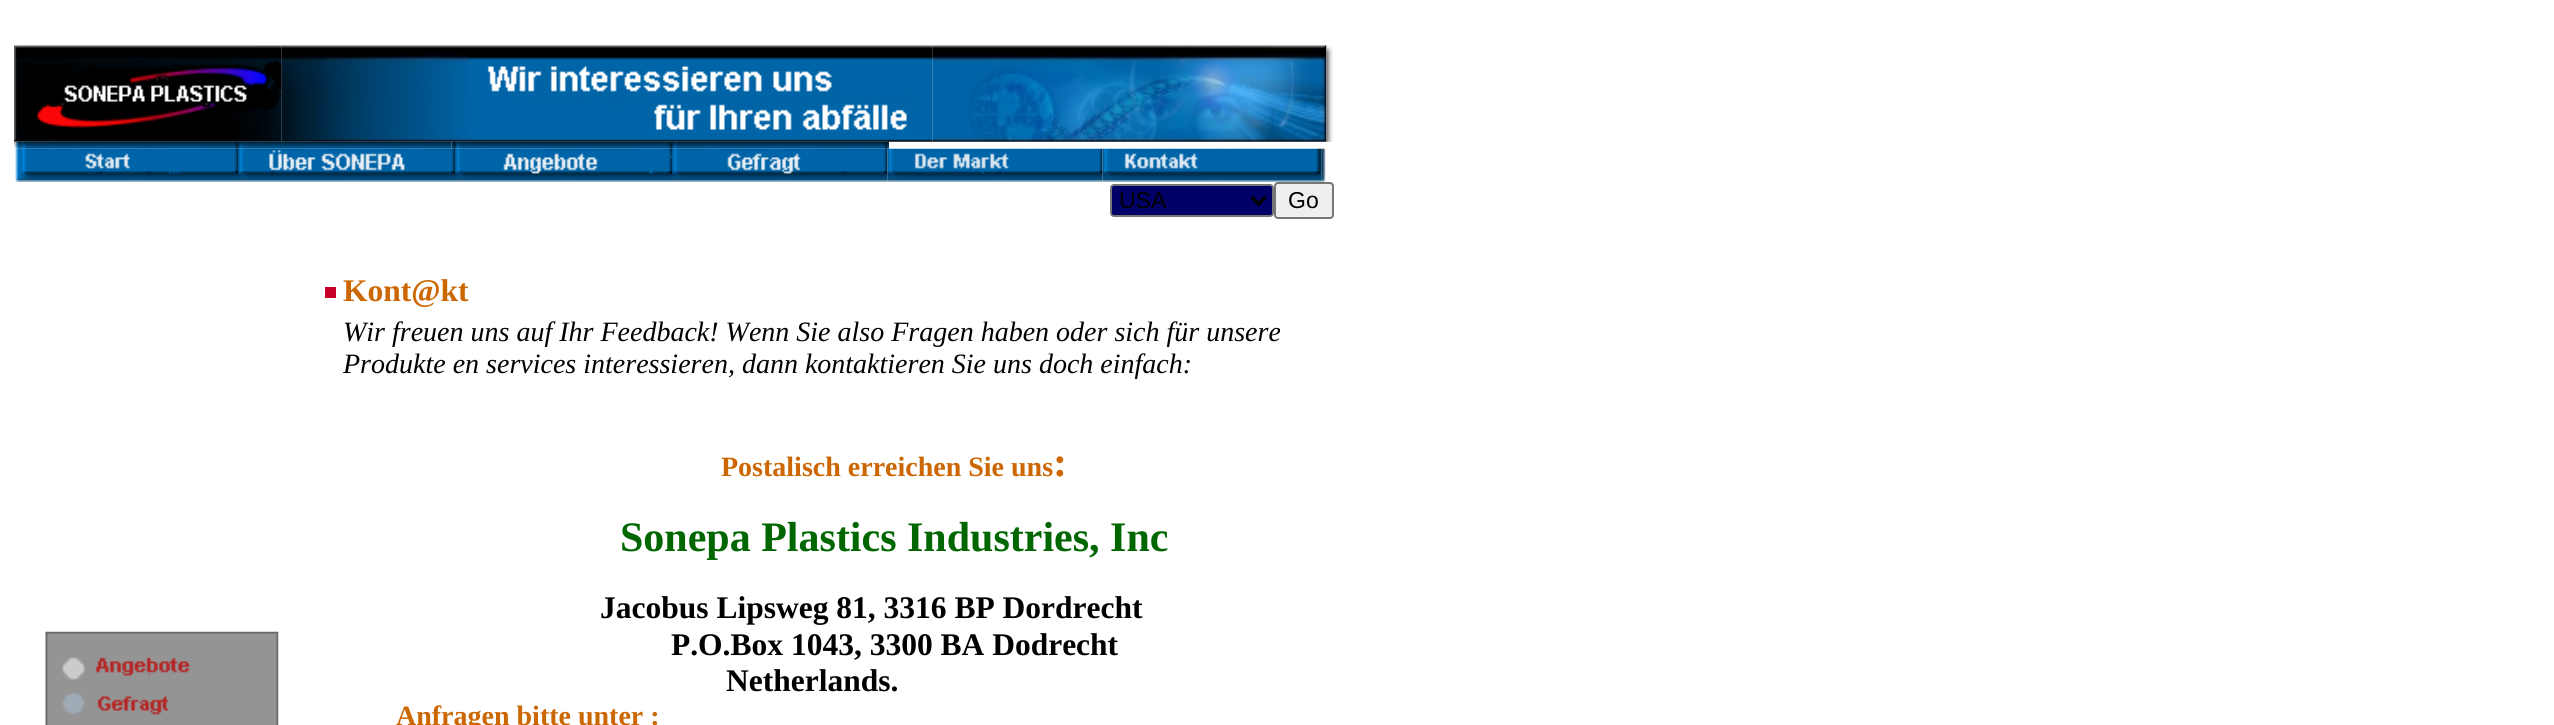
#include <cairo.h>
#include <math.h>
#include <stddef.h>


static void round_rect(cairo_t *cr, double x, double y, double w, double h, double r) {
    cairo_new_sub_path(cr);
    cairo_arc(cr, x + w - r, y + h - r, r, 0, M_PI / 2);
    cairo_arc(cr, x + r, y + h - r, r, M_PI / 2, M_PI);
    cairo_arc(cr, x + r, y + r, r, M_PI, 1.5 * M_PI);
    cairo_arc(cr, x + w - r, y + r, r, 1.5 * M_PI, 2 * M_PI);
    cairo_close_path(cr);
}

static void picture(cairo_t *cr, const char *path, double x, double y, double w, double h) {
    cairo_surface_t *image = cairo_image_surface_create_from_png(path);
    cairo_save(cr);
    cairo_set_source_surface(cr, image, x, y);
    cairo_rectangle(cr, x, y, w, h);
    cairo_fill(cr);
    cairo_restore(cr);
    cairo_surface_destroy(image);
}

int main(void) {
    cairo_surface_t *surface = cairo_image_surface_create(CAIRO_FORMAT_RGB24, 2554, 725);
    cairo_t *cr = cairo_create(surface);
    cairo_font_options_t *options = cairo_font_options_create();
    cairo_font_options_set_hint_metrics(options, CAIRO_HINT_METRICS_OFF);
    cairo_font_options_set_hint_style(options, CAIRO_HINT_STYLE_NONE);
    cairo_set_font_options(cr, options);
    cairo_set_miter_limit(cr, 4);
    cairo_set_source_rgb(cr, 1, 1, 1);
    cairo_paint(cr);
    picture(cr, "img1.png", 14, 45, 268, 97);
    picture(cr, "img2.png", 281, 45, 188, 97);
    picture(cr, "img3.png", 469, 45, 464, 97);
    picture(cr, "img4.png", 932, 45, 395, 97);
    picture(cr, "img5.png", 1326, 45, 8, 97);
    picture(cr, "img6.png", 14, 141, 438, 8);
    picture(cr, "img7.png", 451, 141, 438, 8);
    picture(cr, "img8.png", 15, 148, 223, 34);
    picture(cr, "img9.png", 238, 148, 217, 34);
    picture(cr, "img10.png", 455, 148, 217, 34);
    picture(cr, "img11.png", 672, 148, 216, 34);
    picture(cr, "img12.png", 887, 148, 216, 34);
    picture(cr, "img13.png", 1102, 148, 220, 34);
    picture(cr, "img14.png", 1321, 148, 5, 34);
    cairo_set_source_rgb(cr, 0, 0, 0.4);
    round_rect(cr, 1111, 185, 162, 31, 3);
    cairo_fill_preserve(cr);
    cairo_set_source_rgb(cr, 0.463, 0.463, 0.463);
    cairo_stroke(cr);
    cairo_new_path(cr);
    cairo_move_to(cr, 1251.5, 197);
    cairo_line_to(cr, 1258.5, 204);
    cairo_line_to(cr, 1265.5, 197);
    cairo_set_source_rgb(cr, 0, 0, 0);
    cairo_set_line_width(cr, 3.5);
    cairo_stroke(cr);
    cairo_select_font_face(cr, "Liberation Sans", CAIRO_FONT_SLANT_NORMAL, CAIRO_FONT_WEIGHT_NORMAL);
    cairo_set_font_size(cr, 23);
    cairo_move_to(cr, 1119, 208);
    cairo_show_text(cr, "USA");
    cairo_set_source_rgb(cr, 0.937, 0.937, 0.937);
    round_rect(cr, 1275, 183, 58, 35, 3);
    cairo_fill_preserve(cr);
    cairo_set_source_rgb(cr, 0.463, 0.463, 0.463);
    cairo_set_line_width(cr, 2);
    cairo_stroke(cr);
    cairo_set_source_rgb(cr, 0, 0, 0);
    cairo_move_to(cr, 1288, 208);
    cairo_show_text(cr, "Go");
    picture(cr, "img15.png", 45, 631, 234, 94);
    cairo_set_source_rgb(cr, 0.776, 0, 0.161);
    cairo_rectangle(cr, 325, 287, 11, 11);
    cairo_fill(cr);
    cairo_select_font_face(cr, "Liberation Serif", CAIRO_FONT_SLANT_NORMAL, CAIRO_FONT_WEIGHT_BOLD);
    cairo_set_font_size(cr, 31.5);
    cairo_set_source_rgb(cr, 0.8, 0.4, 0);
    cairo_move_to(cr, 343, 301);
    cairo_show_text(cr, "Kont@kt");
    cairo_select_font_face(cr, "Liberation Serif", CAIRO_FONT_SLANT_ITALIC, CAIRO_FONT_WEIGHT_NORMAL);
    cairo_set_font_size(cr, 28);
    cairo_set_source_rgb(cr, 0, 0, 0);
    cairo_move_to(cr, 343, 341);
    cairo_show_text(cr, "Wir freuen uns auf Ihr Feedback! Wenn Sie also Fragen haben oder sich für unsere");
    cairo_move_to(cr, 343, 373);
    cairo_show_text(cr, "Produkte en services interessieren, dann kontaktieren Sie uns doch einfach:");
    cairo_select_font_face(cr, "Liberation Serif", CAIRO_FONT_SLANT_NORMAL, CAIRO_FONT_WEIGHT_BOLD);
    cairo_set_source_rgb(cr, 0.8, 0.4, 0);
    cairo_move_to(cr, 721, 476);
    cairo_show_text(cr, "Postalisch erreichen Sie uns");
    cairo_set_font_size(cr, 42);
    cairo_move_to(cr, 1053, 476);
    cairo_show_text(cr, ":");
    cairo_set_source_rgb(cr, 0, 0.4, 0);
    cairo_move_to(cr, 620, 551);
    cairo_show_text(cr, "Sonepa Plastics Industries, Inc");
    cairo_set_font_size(cr, 31.5);
    cairo_set_source_rgb(cr, 0, 0, 0);
    cairo_move_to(cr, 600, 618);
    cairo_show_text(cr, "Jacobus Lipsweg 81, 3316 BP Dordrecht");
    cairo_move_to(cr, 671, 655);
    cairo_show_text(cr, "P.O.Box 1043, 3300 BA Dodrecht");
    cairo_move_to(cr, 726, 691);
    cairo_show_text(cr, "Netherlands.");
    cairo_set_font_size(cr, 28);
    cairo_set_source_rgb(cr, 0.8, 0.4, 0);
    cairo_move_to(cr, 396, 725);
    cairo_show_text(cr, "Anfragen bitte unter :");
    cairo_surface_write_to_png(surface, "page.png");
    cairo_font_options_destroy(options);
    cairo_destroy(cr);
    cairo_surface_destroy(surface);
    return 0;
}
